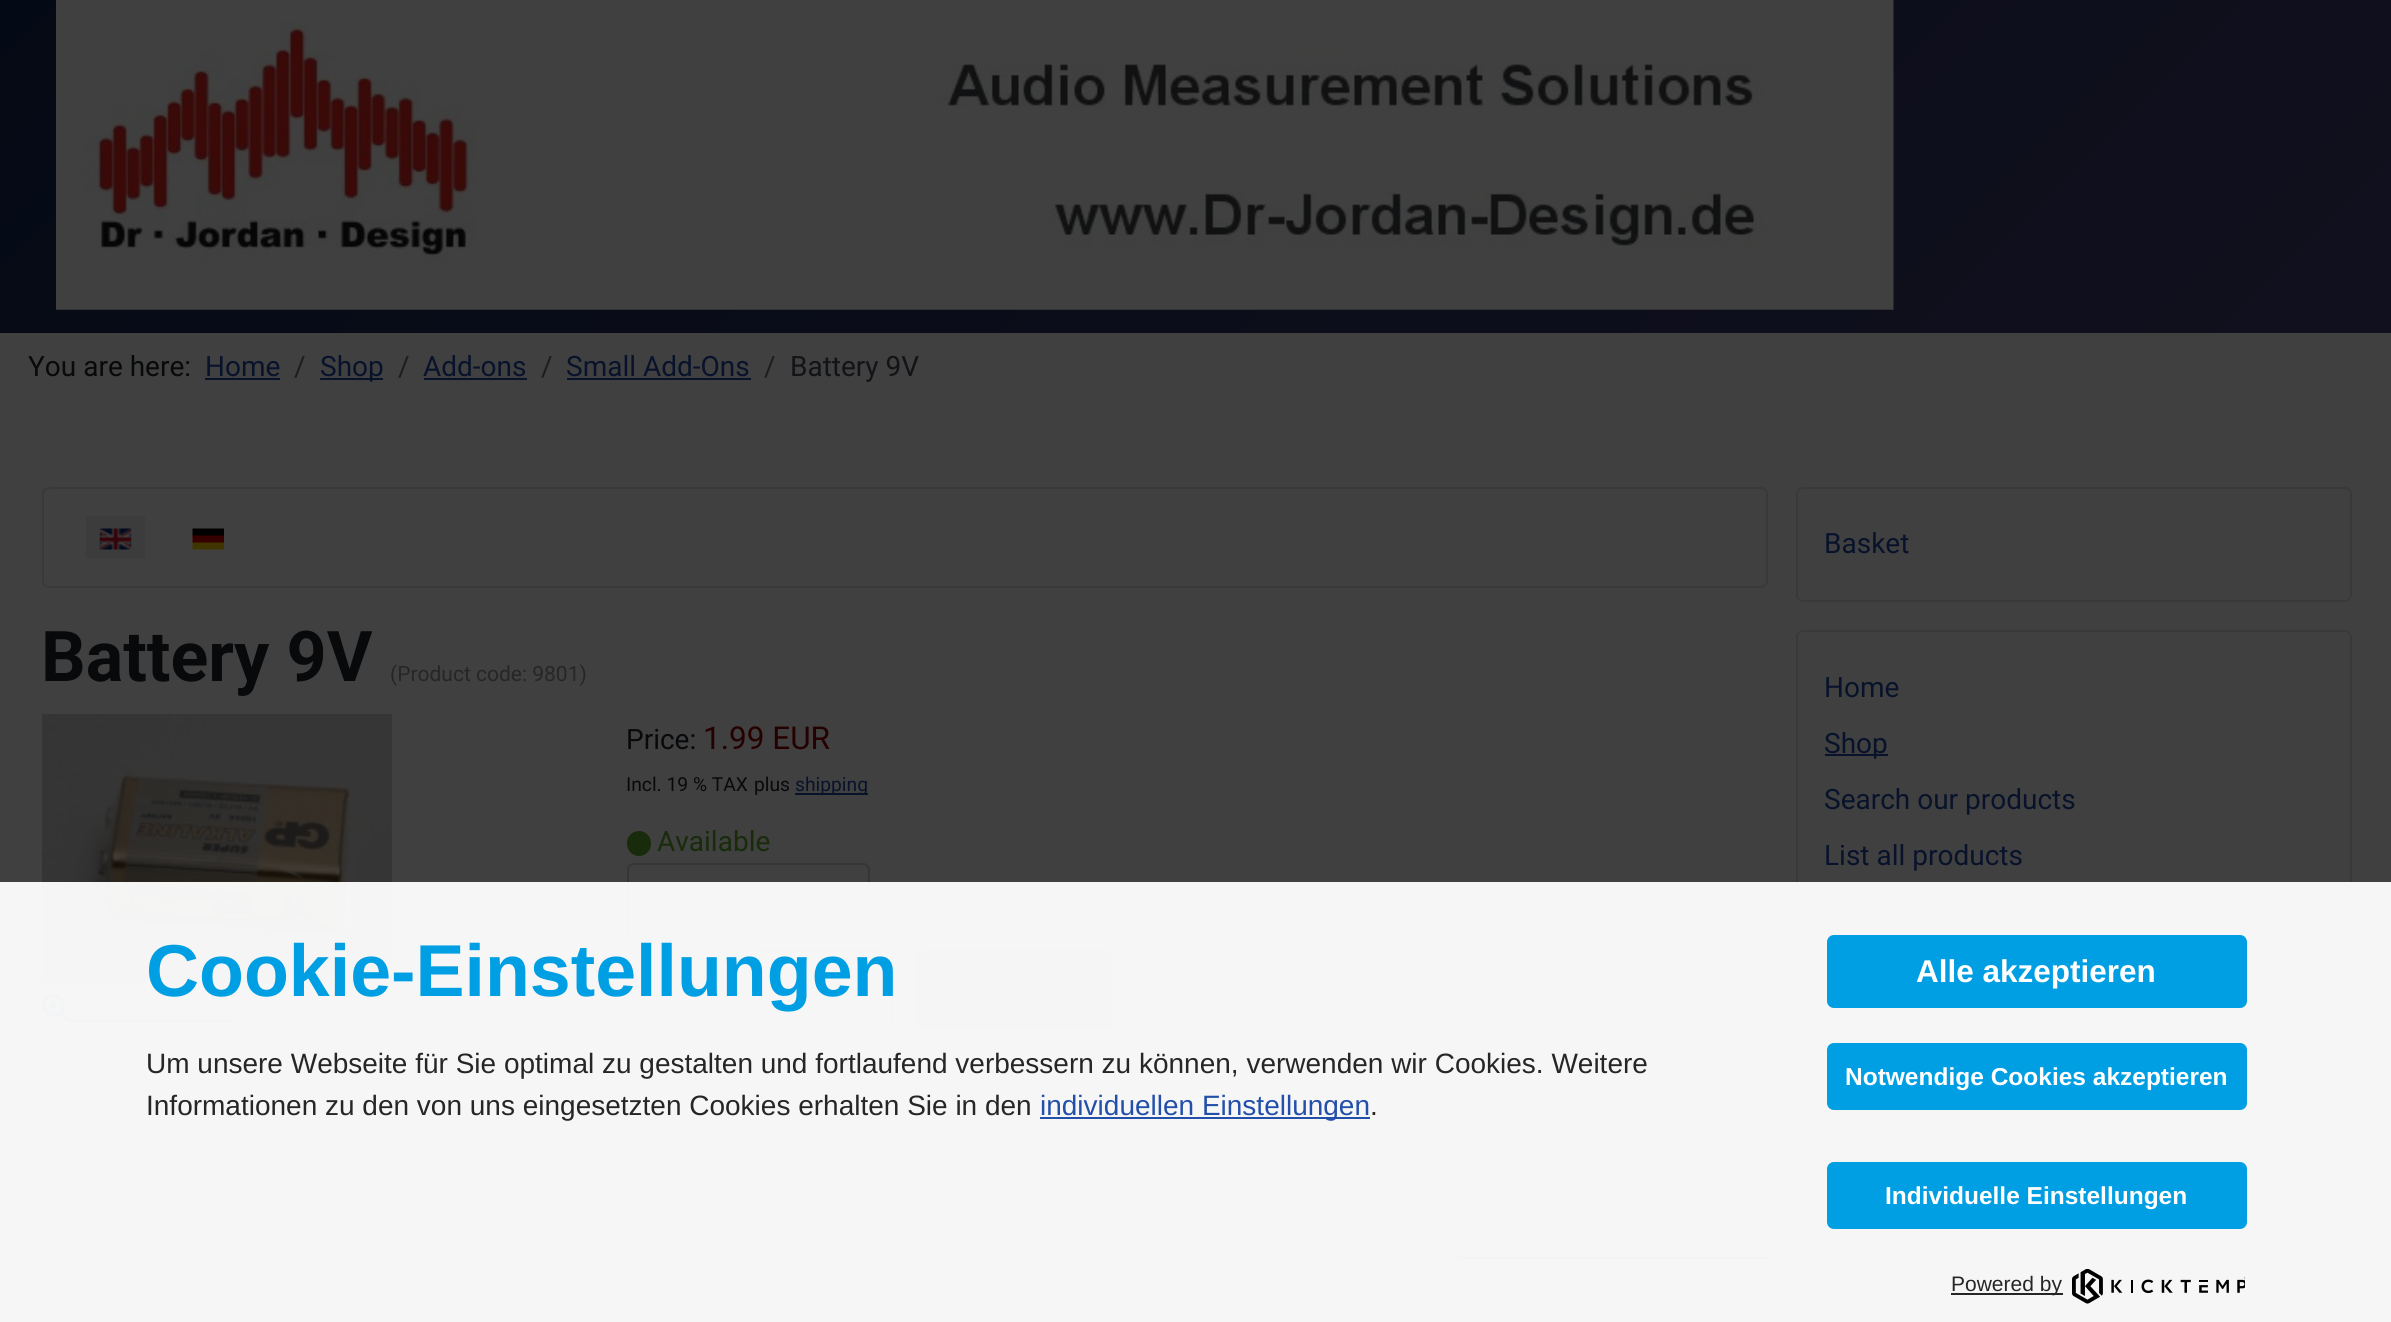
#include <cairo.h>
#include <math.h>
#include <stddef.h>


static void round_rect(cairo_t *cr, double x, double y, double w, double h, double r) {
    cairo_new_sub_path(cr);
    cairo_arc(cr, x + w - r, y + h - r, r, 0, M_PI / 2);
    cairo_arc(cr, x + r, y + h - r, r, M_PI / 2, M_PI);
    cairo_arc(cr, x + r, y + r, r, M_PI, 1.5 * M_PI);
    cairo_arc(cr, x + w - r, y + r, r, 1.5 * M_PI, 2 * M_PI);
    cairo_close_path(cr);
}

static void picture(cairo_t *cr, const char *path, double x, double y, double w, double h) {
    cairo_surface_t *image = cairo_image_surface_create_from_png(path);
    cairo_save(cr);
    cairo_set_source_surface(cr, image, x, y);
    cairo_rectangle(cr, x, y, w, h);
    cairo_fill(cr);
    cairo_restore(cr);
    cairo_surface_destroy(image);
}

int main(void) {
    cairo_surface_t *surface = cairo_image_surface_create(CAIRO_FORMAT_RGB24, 2391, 1322);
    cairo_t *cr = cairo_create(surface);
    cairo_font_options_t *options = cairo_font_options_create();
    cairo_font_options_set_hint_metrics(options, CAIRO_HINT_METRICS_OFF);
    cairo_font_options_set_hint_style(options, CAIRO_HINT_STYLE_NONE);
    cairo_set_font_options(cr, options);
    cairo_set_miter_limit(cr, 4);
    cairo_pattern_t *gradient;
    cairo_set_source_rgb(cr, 0.251, 0.251, 0.251);
    cairo_paint(cr);
    gradient = cairo_pattern_create_linear(508, -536, 1884, 840);
    cairo_pattern_add_color_stop_rgba(gradient, 0, 0.016, 0.039, 0.082, 1);
    cairo_pattern_add_color_stop_rgba(gradient, 1, 0.067, 0.063, 0.118, 1);
    cairo_set_source(cr, gradient);
    cairo_pattern_destroy(gradient);
    cairo_rectangle(cr, 0, 0, 2391, 333);
    cairo_fill(cr);
    picture(cr, "img1.png", 56, 0, 1838, 310);
    cairo_select_font_face(cr, "Roboto", CAIRO_FONT_SLANT_NORMAL, CAIRO_FONT_WEIGHT_NORMAL);
    cairo_set_font_size(cr, 28);
    cairo_set_source_rgb(cr, 0.035, 0.039, 0.043);
    cairo_move_to(cr, 28, 376);
    cairo_show_text(cr, "You are here:");
    cairo_set_source_rgb(cr, 0.035, 0.078, 0.169);
    cairo_move_to(cr, 205, 376);
    cairo_show_text(cr, "Home");
    cairo_rectangle(cr, 205, 378, 75, 2);
    cairo_fill(cr);
    cairo_set_source_rgb(cr, 0.106, 0.114, 0.125);
    cairo_move_to(cr, 294, 376);
    cairo_show_text(cr, "/");
    cairo_set_source_rgb(cr, 0.035, 0.078, 0.169);
    cairo_rectangle(cr, 320, 378, 63, 2);
    cairo_fill(cr);
    cairo_move_to(cr, 320, 376);
    cairo_show_text(cr, "Shop");
    cairo_set_source_rgb(cr, 0.106, 0.114, 0.125);
    cairo_move_to(cr, 398, 376);
    cairo_show_text(cr, "/");
    cairo_set_source_rgb(cr, 0.035, 0.078, 0.169);
    cairo_move_to(cr, 423, 376);
    cairo_show_text(cr, "Add-ons");
    cairo_rectangle(cr, 424, 378, 103, 2);
    cairo_fill(cr);
    cairo_set_source_rgb(cr, 0.106, 0.114, 0.125);
    cairo_move_to(cr, 541, 376);
    cairo_show_text(cr, "/");
    cairo_set_source_rgb(cr, 0.035, 0.078, 0.169);
    cairo_move_to(cr, 566, 376);
    cairo_show_text(cr, "Small Add-Ons");
    cairo_rectangle(cr, 567, 378, 184, 2);
    cairo_fill(cr);
    cairo_set_source_rgb(cr, 0.106, 0.114, 0.125);
    cairo_move_to(cr, 764, 376);
    cairo_show_text(cr, "/");
    cairo_set_source_rgb(cr, 0.071, 0.078, 0.086);
    cairo_move_to(cr, 790, 376);
    cairo_show_text(cr, "Battery 9V");
    round_rect(cr, 43, 488, 1724, 99, 6);
    cairo_set_source_rgb(cr, 0.22, 0.224, 0.227);
    cairo_stroke(cr);
    cairo_set_source_rgb(cr, 0.235, 0.235, 0.235);
    cairo_rectangle(cr, 86, 516, 59, 42);
    cairo_fill(cr);
    picture(cr, "img2.png", 99, 528, 33, 22);
    picture(cr, "img3.png", 192, 528, 32, 22);
    cairo_select_font_face(cr, "Roboto", CAIRO_FONT_SLANT_NORMAL, CAIRO_FONT_WEIGHT_BOLD);
    cairo_set_font_size(cr, 70);
    cairo_set_source_rgb(cr, 0.035, 0.039, 0.043);
    cairo_move_to(cr, 41, 681);
    cairo_show_text(cr, "Battery 9V");
    cairo_select_font_face(cr, "Roboto", CAIRO_FONT_SLANT_NORMAL, CAIRO_FONT_WEIGHT_NORMAL);
    cairo_set_font_size(cr, 21);
    cairo_set_source_rgb(cr, 0.149, 0.149, 0.149);
    cairo_move_to(cr, 390, 681);
    cairo_show_text(cr, "(Product code: 9801)");
    picture(cr, "img4.png", 42, 714, 350, 270);
    picture(cr, "img5.png", 42, 994, 28, 28);
    cairo_set_source_rgb(cr, 0.035, 0.078, 0.169);
    cairo_rectangle(cr, 70, 1020, 163, 2);
    cairo_fill(cr);
    cairo_set_font_size(cr, 28);
    cairo_set_source_rgb(cr, 0.035, 0.039, 0.043);
    cairo_move_to(cr, 626, 749);
    cairo_show_text(cr, "Price:");
    cairo_set_font_size(cr, 31.5);
    cairo_set_source_rgb(cr, 0.145, 0, 0);
    cairo_move_to(cr, 703, 749);
    cairo_show_text(cr, "1.99 EUR");
    cairo_set_font_size(cr, 19.25);
    cairo_set_source_rgb(cr, 0.035, 0.039, 0.043);
    cairo_move_to(cr, 626, 791);
    cairo_show_text(cr, "Incl. 19 % TAX");
    cairo_move_to(cr, 754, 791);
    cairo_show_text(cr, "plus");
    cairo_set_source_rgb(cr, 0.035, 0.078, 0.169);
    cairo_rectangle(cr, 795, 793, 73, 2);
    cairo_fill(cr);
    cairo_move_to(cr, 795, 791);
    cairo_show_text(cr, "shipping");
    cairo_set_source_rgb(cr, 0.094, 0.169, 0.043);
    round_rect(cr, 627, 831, 24, 25, 12);
    cairo_fill(cr);
    cairo_set_font_size(cr, 28);
    cairo_move_to(cr, 657, 851);
    cairo_show_text(cr, "Available");
    round_rect(cr, 628, 864, 241, 77, 6);
    cairo_set_source_rgb(cr, 0.204, 0.208, 0.216);
    cairo_stroke(cr);
    round_rect(cr, 754, 951, 138, 77, 6);
    cairo_stroke(cr);
    cairo_set_source_rgb(cr, 0.067, 0.129, 0.067);
    round_rect(cr, 918, 951, 194, 77, 6);
    cairo_fill_preserve(cr);
    cairo_stroke(cr);
    cairo_set_source_rgb(cr, 0.035, 0.078, 0.169);
    cairo_rectangle(cr, 1458, 1257, 310, 2);
    cairo_fill(cr);
    round_rect(cr, 1797, 488, 554, 113, 6);
    cairo_set_source_rgb(cr, 0.22, 0.224, 0.227);
    cairo_stroke(cr);
    cairo_set_source_rgb(cr, 0.035, 0.078, 0.169);
    cairo_move_to(cr, 1824, 553);
    cairo_show_text(cr, "Basket");
    round_rect(cr, 1797, 631, 554, 450, 6);
    cairo_set_source_rgb(cr, 0.22, 0.224, 0.227);
    cairo_stroke(cr);
    cairo_set_source_rgb(cr, 0.035, 0.078, 0.169);
    cairo_move_to(cr, 1824, 697);
    cairo_show_text(cr, "Home");
    cairo_rectangle(cr, 1825, 754, 63, 2);
    cairo_fill(cr);
    cairo_move_to(cr, 1824, 753);
    cairo_show_text(cr, "Shop");
    cairo_move_to(cr, 1824, 809);
    cairo_show_text(cr, "Search our products");
    cairo_move_to(cr, 1824, 865);
    cairo_show_text(cr, "List all products");
    cairo_set_source_rgba(cr, 1, 1, 1, 0.95);
    cairo_rectangle(cr, 0, 882, 2391, 440);
    cairo_fill(cr);
    cairo_select_font_face(cr, "Liberation Sans", CAIRO_FONT_SLANT_NORMAL, CAIRO_FONT_WEIGHT_BOLD);
    cairo_set_font_size(cr, 73.5);
    cairo_set_source_rgb(cr, 0, 0.62, 0.89);
    cairo_move_to(cr, 146, 996);
    cairo_show_text(cr, "Cookie-Einstellungen");
    cairo_select_font_face(cr, "Liberation Sans", CAIRO_FONT_SLANT_NORMAL, CAIRO_FONT_WEIGHT_NORMAL);
    cairo_set_font_size(cr, 28);
    cairo_set_source_rgb(cr, 0.149, 0.149, 0.149);
    cairo_move_to(cr, 146, 1073);
    cairo_show_text(cr, "Um unsere Webseite für Sie optimal zu gestalten und fortlaufend verbessern zu können, verwenden wir Cookies. Weitere");
    cairo_move_to(cr, 146, 1115);
    cairo_show_text(cr, "Informationen zu den von uns eingesetzten Cookies erhalten Sie in den");
    cairo_set_source_rgb(cr, 0.133, 0.31, 0.667);
    cairo_rectangle(cr, 1040, 1117, 330, 2);
    cairo_fill(cr);
    cairo_move_to(cr, 1040, 1115);
    cairo_show_text(cr, "individuellen Einstellungen");
    cairo_set_source_rgb(cr, 0.149, 0.149, 0.149);
    cairo_move_to(cr, 1370, 1115);
    cairo_show_text(cr, ".");
    cairo_set_source_rgb(cr, 0, 0.62, 0.89);
    round_rect(cr, 1829, 937, 416, 69, 5);
    cairo_fill_preserve(cr);
    cairo_set_line_width(cr, 4);
    cairo_stroke(cr);
    cairo_select_font_face(cr, "Liberation Sans", CAIRO_FONT_SLANT_NORMAL, CAIRO_FONT_WEIGHT_BOLD);
    cairo_set_font_size(cr, 31.5);
    cairo_set_source_rgb(cr, 1, 1, 1);
    cairo_move_to(cr, 1916, 982);
    cairo_show_text(cr, "Alle akzeptieren");
    cairo_set_source_rgb(cr, 0, 0.62, 0.89);
    round_rect(cr, 1829, 1045, 416, 63, 5);
    cairo_fill_preserve(cr);
    cairo_stroke(cr);
    cairo_set_font_size(cr, 24.5);
    cairo_set_source_rgb(cr, 1, 1, 1);
    cairo_move_to(cr, 1845, 1085);
    cairo_show_text(cr, "Notwendige Cookies akzeptieren");
    cairo_set_source_rgb(cr, 0, 0.62, 0.89);
    round_rect(cr, 1829, 1164, 416, 63, 5);
    cairo_fill_preserve(cr);
    cairo_stroke(cr);
    cairo_set_source_rgb(cr, 1, 1, 1);
    cairo_move_to(cr, 1885, 1204);
    cairo_show_text(cr, "Individuelle Einstellungen");
    cairo_set_source_rgb(cr, 0.149, 0.149, 0.149);
    cairo_rectangle(cr, 1951, 1293, 112, 2);
    cairo_fill(cr);
    cairo_select_font_face(cr, "Liberation Sans", CAIRO_FONT_SLANT_NORMAL, CAIRO_FONT_WEIGHT_NORMAL);
    cairo_set_font_size(cr, 21);
    cairo_move_to(cr, 1951, 1291);
    cairo_show_text(cr, "Powered by");
    picture(cr, "img6.png", 2072, 1269, 173, 35);
    cairo_surface_write_to_png(surface, "page.png");
    cairo_font_options_destroy(options);
    cairo_destroy(cr);
    cairo_surface_destroy(surface);
    return 0;
}
